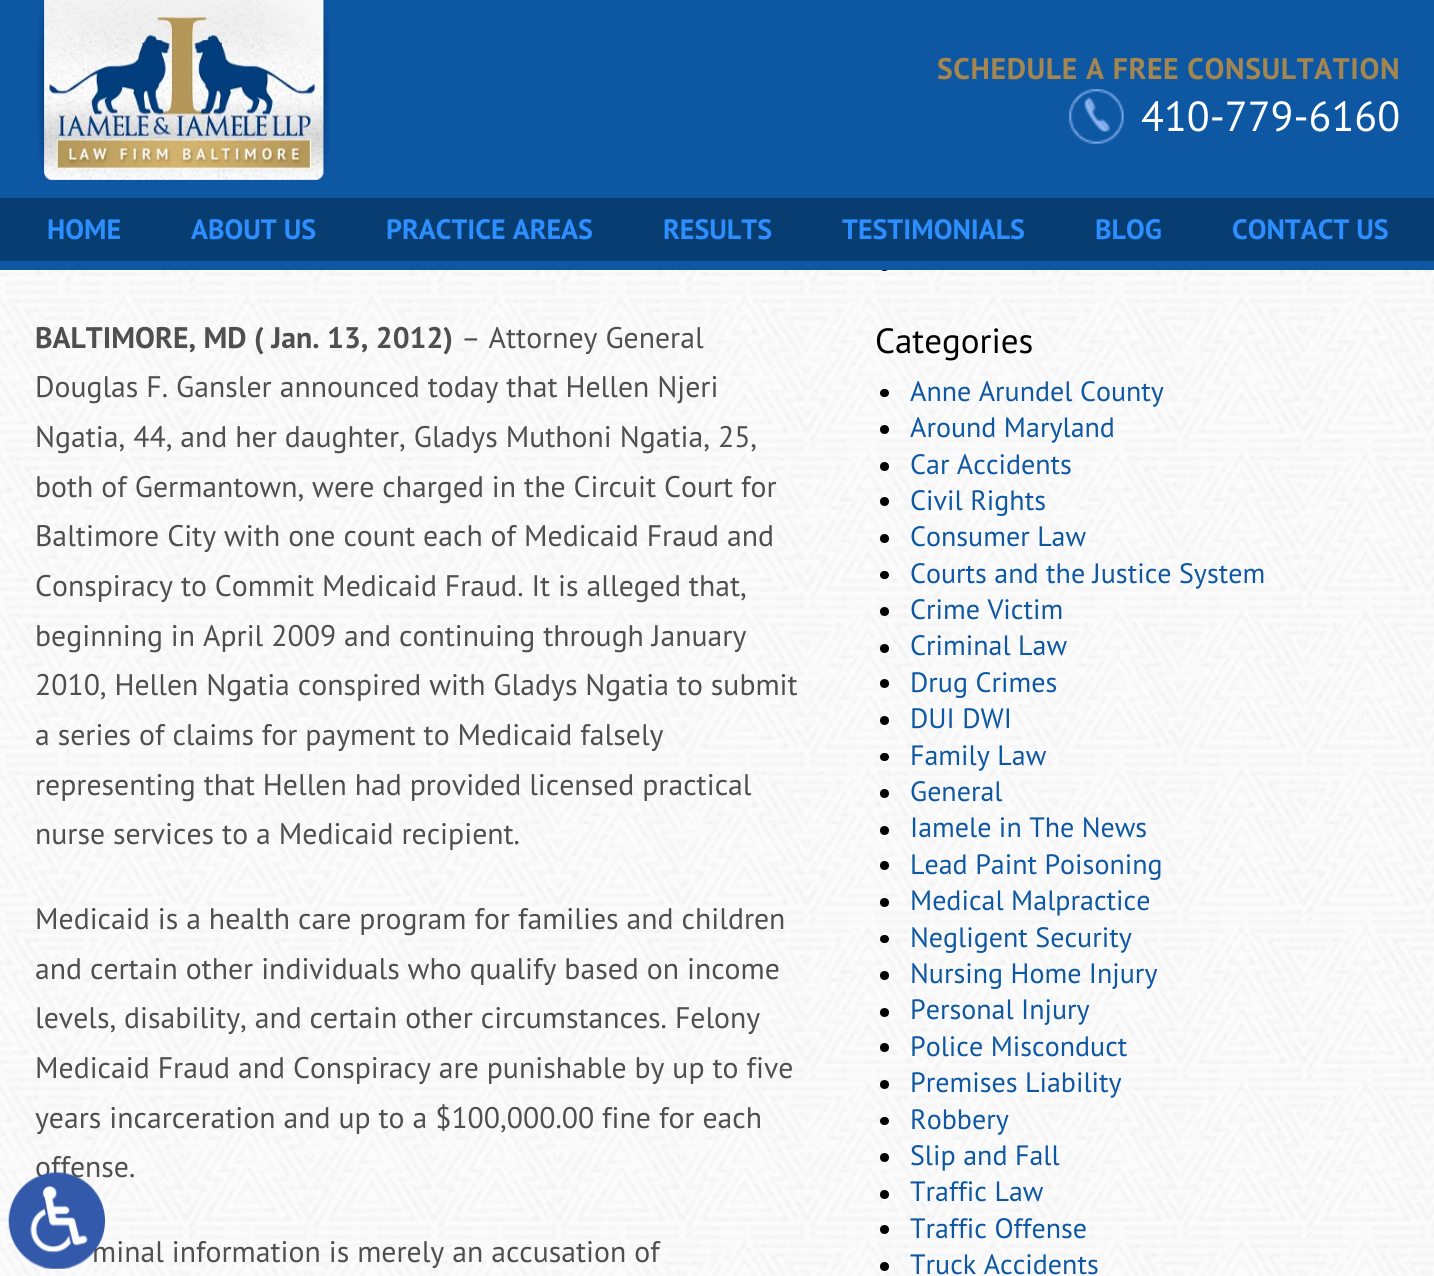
#include <cairo.h>
#include <math.h>
#include <stddef.h>


static void spaced_text(cairo_t *cr, double x, double y, const char *s, double letter, double word) {
    cairo_move_to(cr, x, y);
    while (*s) {
        char ch[5] = {0};
        int n = 0;
        do ch[n++] = *s++; while ((*s & 0xC0) == 0x80);
        cairo_show_text(cr, ch);
        cairo_rel_move_to(cr, letter + word * (*ch == ' '), 0);
    }
}

static void round_rect(cairo_t *cr, double x, double y, double w, double h, double r) {
    cairo_new_sub_path(cr);
    cairo_arc(cr, x + w - r, y + h - r, r, 0, M_PI / 2);
    cairo_arc(cr, x + r, y + h - r, r, M_PI / 2, M_PI);
    cairo_arc(cr, x + r, y + r, r, M_PI, 1.5 * M_PI);
    cairo_arc(cr, x + w - r, y + r, r, 1.5 * M_PI, 2 * M_PI);
    cairo_close_path(cr);
}

static void picture(cairo_t *cr, const char *path, double x, double y, double w, double h) {
    cairo_surface_t *image = cairo_image_surface_create_from_png(path);
    cairo_save(cr);
    cairo_set_source_surface(cr, image, x, y);
    cairo_rectangle(cr, x, y, w, h);
    cairo_fill(cr);
    cairo_restore(cr);
    cairo_surface_destroy(image);
}

int main(void) {
    cairo_surface_t *surface = cairo_image_surface_create(CAIRO_FORMAT_RGB24, 1434, 1276);
    cairo_t *cr = cairo_create(surface);
    cairo_font_options_t *options = cairo_font_options_create();
    cairo_font_options_set_hint_metrics(options, CAIRO_HINT_METRICS_OFF);
    cairo_font_options_set_hint_style(options, CAIRO_HINT_STYLE_NONE);
    cairo_set_font_options(cr, options);
    cairo_set_miter_limit(cr, 4);
    cairo_set_source_rgb(cr, 1, 1, 1);
    cairo_paint(cr);
    picture(cr, "img3.png", 0, 270, 1434, 1006);
    cairo_set_source_rgb(cr, 0, 0, 0);
    round_rect(cr, 880, 263, 9, 8, 4);
    cairo_fill(cr);
    cairo_set_source_rgb(cr, 0.051, 0.341, 0.639);
    cairo_rectangle(cr, 0, 0, 1434, 270);
    cairo_fill(cr);
    picture(cr, "img1.png", 37, 0, 293, 180);
    cairo_select_font_face(cr, "PT Sans", CAIRO_FONT_SLANT_NORMAL, CAIRO_FONT_WEIGHT_BOLD);
    cairo_set_font_size(cr, 29.75);
    cairo_set_source_rgb(cr, 0.643, 0.529, 0.314);
    spaced_text(cr, 937, 79, "SCHEDULE A FREE CONSULTATION", 0.6, 0);
    picture(cr, "img2.png", 1068, 89, 56, 55);
    cairo_select_font_face(cr, "PT Sans", CAIRO_FONT_SLANT_NORMAL, CAIRO_FONT_WEIGHT_NORMAL);
    cairo_set_font_size(cr, 42);
    cairo_set_source_rgb(cr, 1, 1, 1);
    cairo_move_to(cr, 1141, 131);
    cairo_show_text(cr, "410-779-6160");
    cairo_set_source_rgb(cr, 0.035, 0.239, 0.447);
    cairo_rectangle(cr, 0, 198, 1434, 63);
    cairo_fill(cr);
    cairo_select_font_face(cr, "PT Sans", CAIRO_FONT_SLANT_NORMAL, CAIRO_FONT_WEIGHT_BOLD);
    cairo_set_font_size(cr, 28);
    cairo_set_source_rgb(cr, 0.176, 0.561, 1);
    cairo_move_to(cr, 47, 239);
    cairo_show_text(cr, "HOME");
    cairo_move_to(cr, 191, 239);
    cairo_show_text(cr, "ABOUT US");
    cairo_move_to(cr, 386, 239);
    cairo_show_text(cr, "PRACTICE AREAS");
    cairo_move_to(cr, 663, 239);
    cairo_show_text(cr, "RESULTS");
    cairo_move_to(cr, 842, 239);
    cairo_show_text(cr, "TESTIMONIALS");
    cairo_move_to(cr, 1095, 239);
    cairo_show_text(cr, "BLOG");
    cairo_move_to(cr, 1232, 239);
    cairo_show_text(cr, "CONTACT US");
    cairo_set_font_size(cr, 29.75);
    cairo_set_source_rgb(cr, 0.314, 0.31, 0.31);
    cairo_move_to(cr, 35, 348);
    cairo_show_text(cr, "BALTIMORE, MD ( Jan. 13, 2012)");
    cairo_select_font_face(cr, "PT Sans", CAIRO_FONT_SLANT_NORMAL, CAIRO_FONT_WEIGHT_NORMAL);
    cairo_move_to(cr, 461, 348);
    cairo_show_text(cr, "– Attorney General");
    cairo_move_to(cr, 35, 397);
    cairo_show_text(cr, "Douglas F. Gansler announced today that Hellen Njeri");
    cairo_move_to(cr, 35, 447);
    cairo_show_text(cr, "Ngatia, 44, and her daughter, Gladys Muthoni Ngatia, 25,");
    cairo_move_to(cr, 35, 497);
    cairo_show_text(cr, "both of Germantown, were charged in the Circuit Court for");
    cairo_move_to(cr, 35, 546);
    cairo_show_text(cr, "Baltimore City with one count each of Medicaid Fraud and");
    cairo_move_to(cr, 35, 596);
    cairo_show_text(cr, "Conspiracy to Commit Medicaid Fraud. It is alleged that,");
    cairo_move_to(cr, 35, 646);
    cairo_show_text(cr, "beginning in April 2009 and continuing through January");
    cairo_move_to(cr, 35, 695);
    cairo_show_text(cr, "2010, Hellen Ngatia conspired with Gladys Ngatia to submit");
    cairo_move_to(cr, 35, 745);
    cairo_show_text(cr, "a series of claims for payment to Medicaid falsely");
    cairo_move_to(cr, 35, 795);
    cairo_show_text(cr, "representing that Hellen had provided licensed practical");
    cairo_move_to(cr, 35, 844);
    cairo_show_text(cr, "nurse services to a Medicaid recipient.");
    cairo_move_to(cr, 35, 929);
    cairo_show_text(cr, "Medicaid is a health care program for families and children");
    cairo_move_to(cr, 35, 979);
    cairo_show_text(cr, "and certain other individuals who qualify based on income");
    cairo_move_to(cr, 35, 1028);
    cairo_show_text(cr, "levels, disability, and certain other circumstances. Felony");
    cairo_move_to(cr, 35, 1078);
    cairo_show_text(cr, "Medicaid Fraud and Conspiracy are punishable by up to five");
    cairo_move_to(cr, 35, 1128);
    cairo_show_text(cr, "years incarceration and up to a $100,000.00 fine for each");
    cairo_move_to(cr, 35, 1177);
    cairo_show_text(cr, "offense.");
    cairo_move_to(cr, 92, 1262);
    cairo_show_text(cr, "minal information is merely an accusation of");
    cairo_set_font_size(cr, 35);
    cairo_set_source_rgb(cr, 0, 0, 0);
    cairo_move_to(cr, 875, 353);
    cairo_show_text(cr, "Categories");
    round_rect(cr, 880, 389, 9, 8, 4);
    cairo_fill(cr);
    cairo_set_font_size(cr, 28);
    cairo_set_source_rgb(cr, 0.051, 0.341, 0.639);
    cairo_move_to(cr, 910, 401);
    cairo_show_text(cr, "Anne Arundel County");
    cairo_set_source_rgb(cr, 0, 0, 0);
    cairo_new_path(cr);
    cairo_arc(cr, 884.5, 429.5, 4.5, 0, 2 * M_PI);
    cairo_fill(cr);
    cairo_set_source_rgb(cr, 0.051, 0.341, 0.639);
    cairo_move_to(cr, 910, 437);
    cairo_show_text(cr, "Around Maryland");
    cairo_set_source_rgb(cr, 0, 0, 0);
    cairo_new_path(cr);
    cairo_arc(cr, 884.5, 466.5, 4.5, 0, 2 * M_PI);
    cairo_fill(cr);
    cairo_set_source_rgb(cr, 0.051, 0.341, 0.639);
    cairo_move_to(cr, 910, 474);
    cairo_show_text(cr, "Car Accidents");
    cairo_set_source_rgb(cr, 0, 0, 0);
    cairo_new_path(cr);
    cairo_arc(cr, 884.5, 501.5, 4.5, 0, 2 * M_PI);
    cairo_fill(cr);
    cairo_set_source_rgb(cr, 0.051, 0.341, 0.639);
    cairo_move_to(cr, 910, 510);
    cairo_show_text(cr, "Civil Rights");
    cairo_set_source_rgb(cr, 0, 0, 0);
    cairo_new_path(cr);
    cairo_arc(cr, 884.5, 538.5, 4.5, 0, 2 * M_PI);
    cairo_fill(cr);
    cairo_set_source_rgb(cr, 0.051, 0.341, 0.639);
    cairo_move_to(cr, 910, 546);
    cairo_show_text(cr, "Consumer Law");
    cairo_set_source_rgb(cr, 0, 0, 0);
    round_rect(cr, 880, 571, 9, 8, 4);
    cairo_fill(cr);
    cairo_set_source_rgb(cr, 0.051, 0.341, 0.639);
    cairo_move_to(cr, 910, 583);
    cairo_show_text(cr, "Courts and the Justice System");
    cairo_set_source_rgb(cr, 0, 0, 0);
    cairo_new_path(cr);
    cairo_arc(cr, 884.5, 611.5, 4.5, 0, 2 * M_PI);
    cairo_fill(cr);
    cairo_set_source_rgb(cr, 0.051, 0.341, 0.639);
    cairo_move_to(cr, 910, 619);
    cairo_show_text(cr, "Crime Victim");
    cairo_set_source_rgb(cr, 0, 0, 0);
    cairo_new_path(cr);
    cairo_arc(cr, 884.5, 648.5, 4.5, 0, 2 * M_PI);
    cairo_fill(cr);
    cairo_set_source_rgb(cr, 0.051, 0.341, 0.639);
    cairo_move_to(cr, 910, 655);
    cairo_show_text(cr, "Criminal Law");
    cairo_set_source_rgb(cr, 0, 0, 0);
    cairo_new_path(cr);
    cairo_arc(cr, 884.5, 683.5, 4.5, 0, 2 * M_PI);
    cairo_fill(cr);
    cairo_set_source_rgb(cr, 0.051, 0.341, 0.639);
    cairo_move_to(cr, 910, 692);
    cairo_show_text(cr, "Drug Crimes");
    cairo_set_source_rgb(cr, 0, 0, 0);
    cairo_new_path(cr);
    cairo_arc(cr, 884.5, 720.5, 4.5, 0, 2 * M_PI);
    cairo_fill(cr);
    cairo_set_source_rgb(cr, 0.051, 0.341, 0.639);
    cairo_move_to(cr, 910, 728);
    cairo_show_text(cr, "DUI DWI");
    cairo_set_source_rgb(cr, 0, 0, 0);
    round_rect(cr, 880, 753, 9, 8, 4);
    cairo_fill(cr);
    cairo_set_source_rgb(cr, 0.051, 0.341, 0.639);
    cairo_move_to(cr, 910, 765);
    cairo_show_text(cr, "Family Law");
    cairo_set_source_rgb(cr, 0, 0, 0);
    cairo_new_path(cr);
    cairo_arc(cr, 884.5, 793.5, 4.5, 0, 2 * M_PI);
    cairo_fill(cr);
    cairo_set_source_rgb(cr, 0.051, 0.341, 0.639);
    cairo_move_to(cr, 910, 801);
    cairo_show_text(cr, "General");
    cairo_set_source_rgb(cr, 0, 0, 0);
    cairo_new_path(cr);
    cairo_arc(cr, 884.5, 830.5, 4.5, 0, 2 * M_PI);
    cairo_fill(cr);
    cairo_set_source_rgb(cr, 0.051, 0.341, 0.639);
    cairo_move_to(cr, 910, 837);
    cairo_show_text(cr, "Iamele in The News");
    cairo_set_source_rgb(cr, 0, 0, 0);
    cairo_new_path(cr);
    cairo_arc(cr, 884.5, 865.5, 4.5, 0, 2 * M_PI);
    cairo_fill(cr);
    cairo_set_source_rgb(cr, 0.051, 0.341, 0.639);
    cairo_move_to(cr, 910, 874);
    cairo_show_text(cr, "Lead Paint Poisoning");
    cairo_set_source_rgb(cr, 0, 0, 0);
    cairo_new_path(cr);
    cairo_arc(cr, 884.5, 902.5, 4.5, 0, 2 * M_PI);
    cairo_fill(cr);
    cairo_set_source_rgb(cr, 0.051, 0.341, 0.639);
    cairo_move_to(cr, 910, 910);
    cairo_show_text(cr, "Medical Malpractice");
    cairo_set_source_rgb(cr, 0, 0, 0);
    round_rect(cr, 880, 935, 9, 8, 4);
    cairo_fill(cr);
    cairo_set_source_rgb(cr, 0.051, 0.341, 0.639);
    cairo_move_to(cr, 910, 947);
    cairo_show_text(cr, "Negligent Security");
    cairo_set_source_rgb(cr, 0, 0, 0);
    cairo_new_path(cr);
    cairo_arc(cr, 884.5, 975.5, 4.5, 0, 2 * M_PI);
    cairo_fill(cr);
    cairo_set_source_rgb(cr, 0.051, 0.341, 0.639);
    cairo_move_to(cr, 910, 983);
    cairo_show_text(cr, "Nursing Home Injury");
    cairo_set_source_rgb(cr, 0, 0, 0);
    cairo_new_path(cr);
    cairo_arc(cr, 884.5, 1012.5, 4.5, 0, 2 * M_PI);
    cairo_fill(cr);
    cairo_set_source_rgb(cr, 0.051, 0.341, 0.639);
    cairo_move_to(cr, 910, 1019);
    cairo_show_text(cr, "Personal Injury");
    cairo_set_source_rgb(cr, 0, 0, 0);
    cairo_new_path(cr);
    cairo_arc(cr, 884.5, 1047.5, 4.5, 0, 2 * M_PI);
    cairo_fill(cr);
    cairo_set_source_rgb(cr, 0.051, 0.341, 0.639);
    cairo_move_to(cr, 910, 1056);
    cairo_show_text(cr, "Police Misconduct");
    cairo_set_source_rgb(cr, 0, 0, 0);
    cairo_new_path(cr);
    cairo_arc(cr, 884.5, 1084.5, 4.5, 0, 2 * M_PI);
    cairo_fill(cr);
    cairo_set_source_rgb(cr, 0.051, 0.341, 0.639);
    cairo_move_to(cr, 910, 1092);
    cairo_show_text(cr, "Premises Liability");
    cairo_set_source_rgb(cr, 0, 0, 0);
    round_rect(cr, 880, 1117, 9, 8, 4);
    cairo_fill(cr);
    cairo_set_source_rgb(cr, 0.051, 0.341, 0.639);
    cairo_move_to(cr, 910, 1129);
    cairo_show_text(cr, "Robbery");
    cairo_set_source_rgb(cr, 0, 0, 0);
    cairo_new_path(cr);
    cairo_arc(cr, 884.5, 1157.5, 4.5, 0, 2 * M_PI);
    cairo_fill(cr);
    cairo_set_source_rgb(cr, 0.051, 0.341, 0.639);
    cairo_move_to(cr, 910, 1165);
    cairo_show_text(cr, "Slip and Fall");
    cairo_set_source_rgb(cr, 0, 0, 0);
    cairo_new_path(cr);
    cairo_arc(cr, 884.5, 1194.5, 4.5, 0, 2 * M_PI);
    cairo_fill(cr);
    cairo_set_source_rgb(cr, 0.051, 0.341, 0.639);
    cairo_move_to(cr, 910, 1201);
    cairo_show_text(cr, "Traffic Law");
    cairo_set_source_rgb(cr, 0, 0, 0);
    cairo_new_path(cr);
    cairo_arc(cr, 884.5, 1229.5, 4.5, 0, 2 * M_PI);
    cairo_fill(cr);
    cairo_set_source_rgb(cr, 0.051, 0.341, 0.639);
    cairo_move_to(cr, 910, 1238);
    cairo_show_text(cr, "Traffic Offense");
    cairo_set_source_rgb(cr, 0, 0, 0);
    cairo_new_path(cr);
    cairo_arc(cr, 884.5, 1266.5, 4.5, 0, 2 * M_PI);
    cairo_fill(cr);
    cairo_set_source_rgb(cr, 0.051, 0.341, 0.639);
    cairo_move_to(cr, 910, 1274);
    cairo_show_text(cr, "Truck Accidents");
    picture(cr, "img4.png", 8, 1172, 97, 97);
    cairo_surface_write_to_png(surface, "page.png");
    cairo_font_options_destroy(options);
    cairo_destroy(cr);
    cairo_surface_destroy(surface);
    return 0;
}
